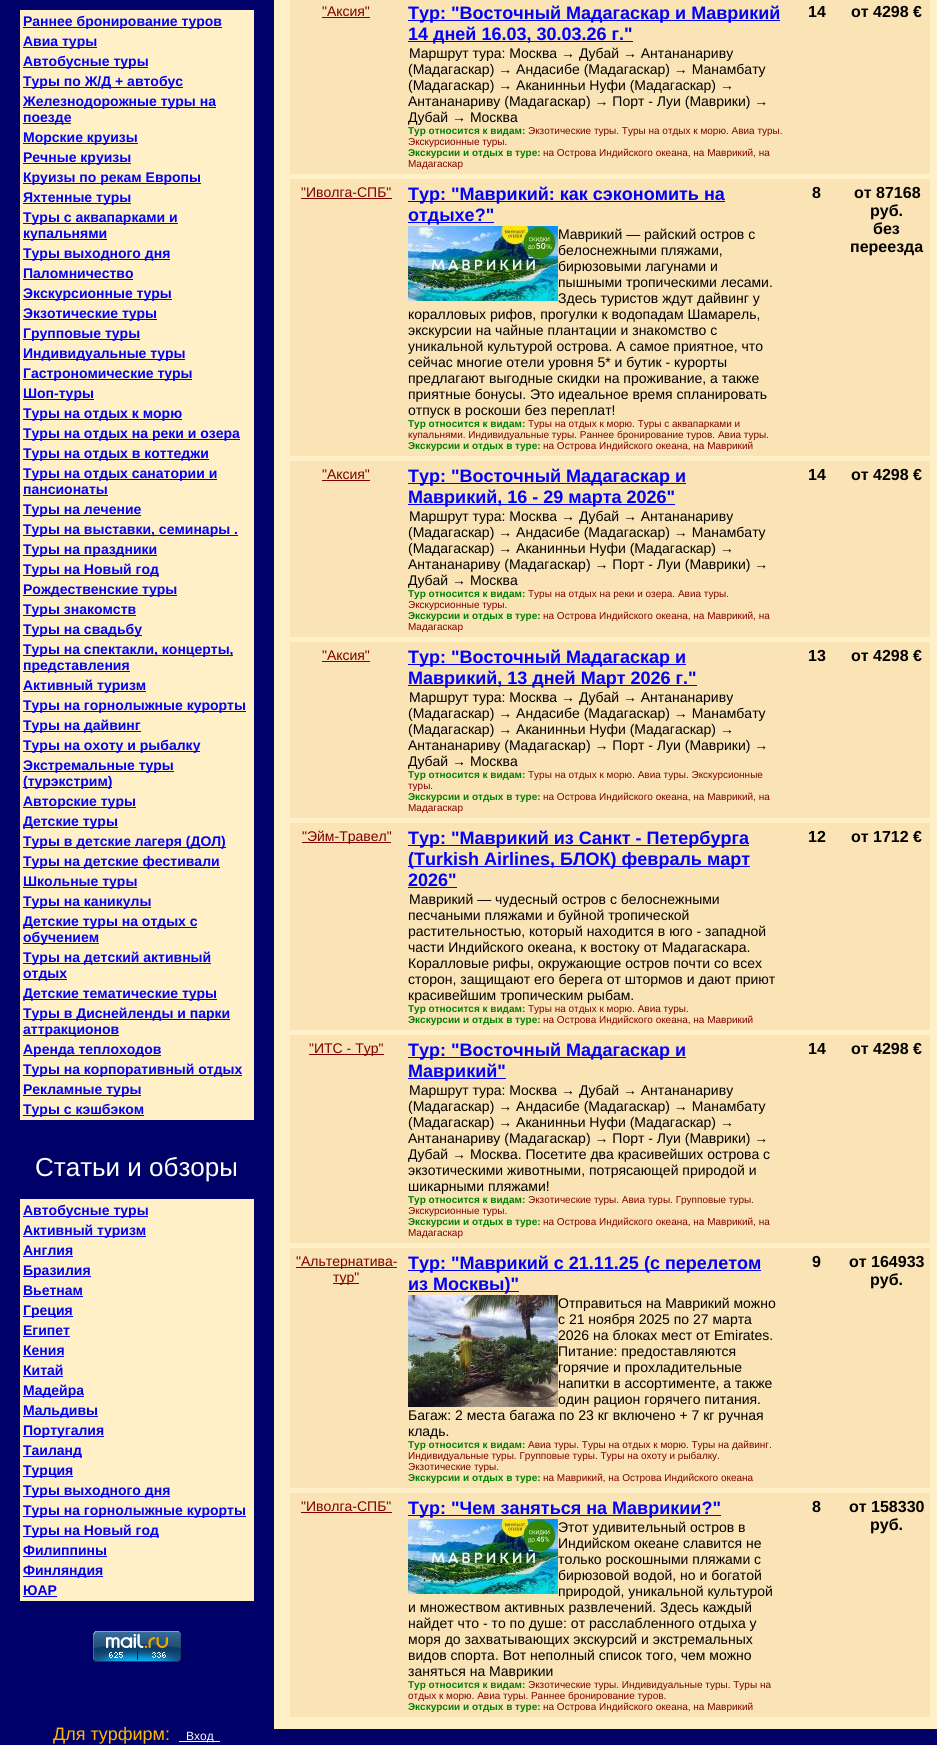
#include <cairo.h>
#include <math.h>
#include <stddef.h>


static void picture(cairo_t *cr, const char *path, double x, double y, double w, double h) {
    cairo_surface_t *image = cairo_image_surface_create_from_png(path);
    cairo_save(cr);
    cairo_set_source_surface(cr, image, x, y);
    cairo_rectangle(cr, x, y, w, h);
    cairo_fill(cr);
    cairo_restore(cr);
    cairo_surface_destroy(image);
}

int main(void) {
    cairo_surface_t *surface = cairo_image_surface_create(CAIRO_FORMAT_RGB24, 937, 1745);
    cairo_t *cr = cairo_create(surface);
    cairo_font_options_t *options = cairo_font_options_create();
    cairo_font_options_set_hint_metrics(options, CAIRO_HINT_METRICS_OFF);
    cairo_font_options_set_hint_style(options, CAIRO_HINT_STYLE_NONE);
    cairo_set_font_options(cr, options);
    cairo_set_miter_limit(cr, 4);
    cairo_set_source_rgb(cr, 0, 0, 0.412);
    cairo_paint(cr);
    cairo_set_source_rgb(cr, 1, 0.941, 0.78);
    cairo_rectangle(cr, 20, 10, 234, 1110);
    cairo_fill(cr);
    cairo_set_source_rgb(cr, 0, 0, 1);
    cairo_rectangle(cr, 23, 27, 199, 1);
    cairo_fill(cr);
    cairo_select_font_face(cr, "Liberation Sans", CAIRO_FONT_SLANT_NORMAL, CAIRO_FONT_WEIGHT_BOLD);
    cairo_set_font_size(cr, 14);
    cairo_move_to(cr, 23, 26);
    cairo_show_text(cr, "Раннее бронирование туров");
    cairo_rectangle(cr, 23, 47, 74, 1);
    cairo_fill(cr);
    cairo_move_to(cr, 23, 46);
    cairo_show_text(cr, "Авиа туры");
    cairo_rectangle(cr, 23, 67, 125, 1);
    cairo_fill(cr);
    cairo_move_to(cr, 23, 66);
    cairo_show_text(cr, "Автобусные туры");
    cairo_rectangle(cr, 23, 87, 160, 1);
    cairo_fill(cr);
    cairo_move_to(cr, 23, 86);
    cairo_show_text(cr, "Туры по Ж/Д + автобус");
    cairo_rectangle(cr, 23, 107, 193, 1);
    cairo_fill(cr);
    cairo_move_to(cr, 23, 106);
    cairo_show_text(cr, "Железнодорожные туры на");
    cairo_rectangle(cr, 23, 123, 48, 1);
    cairo_fill(cr);
    cairo_move_to(cr, 23, 122);
    cairo_show_text(cr, "поезде");
    cairo_rectangle(cr, 23, 143, 115, 1);
    cairo_fill(cr);
    cairo_move_to(cr, 23, 142);
    cairo_show_text(cr, "Морские круизы");
    cairo_rectangle(cr, 23, 163, 108, 1);
    cairo_fill(cr);
    cairo_move_to(cr, 23, 162);
    cairo_show_text(cr, "Речные круизы");
    cairo_rectangle(cr, 23, 183, 178, 1);
    cairo_fill(cr);
    cairo_move_to(cr, 23, 182);
    cairo_show_text(cr, "Круизы по рекам Европы");
    cairo_rectangle(cr, 23, 203, 108, 1);
    cairo_fill(cr);
    cairo_move_to(cr, 23, 202);
    cairo_show_text(cr, "Яхтенные туры");
    cairo_rectangle(cr, 23, 223, 155, 1);
    cairo_fill(cr);
    cairo_move_to(cr, 23, 222);
    cairo_show_text(cr, "Туры с аквапарками и");
    cairo_rectangle(cr, 23, 239, 84, 1);
    cairo_fill(cr);
    cairo_move_to(cr, 23, 238);
    cairo_show_text(cr, "купальнями");
    cairo_rectangle(cr, 23, 259, 147, 1);
    cairo_fill(cr);
    cairo_move_to(cr, 23, 258);
    cairo_show_text(cr, "Туры выходного дня");
    cairo_move_to(cr, 23, 278);
    cairo_show_text(cr, "Паломничество");
    cairo_rectangle(cr, 23, 279, 110, 1);
    cairo_fill(cr);
    cairo_rectangle(cr, 23, 299, 149, 1);
    cairo_fill(cr);
    cairo_move_to(cr, 23, 298);
    cairo_show_text(cr, "Экскурсионные туры");
    cairo_rectangle(cr, 23, 319, 134, 1);
    cairo_fill(cr);
    cairo_move_to(cr, 23, 318);
    cairo_show_text(cr, "Экзотические туры");
    cairo_rectangle(cr, 23, 339, 117, 1);
    cairo_fill(cr);
    cairo_move_to(cr, 23, 338);
    cairo_show_text(cr, "Групповые туры");
    cairo_rectangle(cr, 23, 359, 162, 1);
    cairo_fill(cr);
    cairo_move_to(cr, 23, 358);
    cairo_show_text(cr, "Индивидуальные туры");
    cairo_rectangle(cr, 23, 379, 169, 1);
    cairo_fill(cr);
    cairo_move_to(cr, 23, 378);
    cairo_show_text(cr, "Гастрономические туры");
    cairo_rectangle(cr, 23, 399, 71, 1);
    cairo_fill(cr);
    cairo_move_to(cr, 23, 398);
    cairo_show_text(cr, "Шоп-туры");
    cairo_rectangle(cr, 23, 419, 159, 1);
    cairo_fill(cr);
    cairo_move_to(cr, 23, 418);
    cairo_show_text(cr, "Туры на отдых к морю");
    cairo_rectangle(cr, 23, 439, 217, 1);
    cairo_fill(cr);
    cairo_move_to(cr, 23, 438);
    cairo_show_text(cr, "Туры на отдых на реки и озера");
    cairo_rectangle(cr, 23, 459, 186, 1);
    cairo_fill(cr);
    cairo_move_to(cr, 23, 458);
    cairo_show_text(cr, "Туры на отдых в коттеджи");
    cairo_rectangle(cr, 23, 479, 194, 1);
    cairo_fill(cr);
    cairo_move_to(cr, 23, 478);
    cairo_show_text(cr, "Туры на отдых санатории и");
    cairo_move_to(cr, 23, 494);
    cairo_show_text(cr, "пансионаты");
    cairo_rectangle(cr, 23, 495, 85, 1);
    cairo_fill(cr);
    cairo_rectangle(cr, 23, 515, 118, 1);
    cairo_fill(cr);
    cairo_move_to(cr, 23, 514);
    cairo_show_text(cr, "Туры на лечение");
    cairo_rectangle(cr, 23, 535, 215, 1);
    cairo_fill(cr);
    cairo_move_to(cr, 23, 534);
    cairo_show_text(cr, "Туры на выставки, семинары .");
    cairo_rectangle(cr, 23, 555, 134, 1);
    cairo_fill(cr);
    cairo_move_to(cr, 23, 554);
    cairo_show_text(cr, "Туры на праздники");
    cairo_rectangle(cr, 23, 575, 136, 1);
    cairo_fill(cr);
    cairo_move_to(cr, 23, 574);
    cairo_show_text(cr, "Туры на Новый год");
    cairo_rectangle(cr, 23, 595, 154, 1);
    cairo_fill(cr);
    cairo_move_to(cr, 23, 594);
    cairo_show_text(cr, "Рождественские туры");
    cairo_rectangle(cr, 23, 615, 113, 1);
    cairo_fill(cr);
    cairo_move_to(cr, 23, 614);
    cairo_show_text(cr, "Туры знакомств");
    cairo_rectangle(cr, 23, 635, 119, 1);
    cairo_fill(cr);
    cairo_move_to(cr, 23, 634);
    cairo_show_text(cr, "Туры на свадьбу");
    cairo_rectangle(cr, 23, 655, 210, 1);
    cairo_fill(cr);
    cairo_move_to(cr, 23, 654);
    cairo_show_text(cr, "Туры на спектакли, концерты,");
    cairo_rectangle(cr, 23, 671, 107, 1);
    cairo_fill(cr);
    cairo_move_to(cr, 23, 670);
    cairo_show_text(cr, "представления");
    cairo_rectangle(cr, 23, 691, 123, 1);
    cairo_fill(cr);
    cairo_move_to(cr, 23, 690);
    cairo_show_text(cr, "Активный туризм");
    cairo_rectangle(cr, 23, 711, 223, 1);
    cairo_fill(cr);
    cairo_move_to(cr, 23, 710);
    cairo_show_text(cr, "Туры на горнолыжные курорты");
    cairo_rectangle(cr, 23, 731, 118, 1);
    cairo_fill(cr);
    cairo_move_to(cr, 23, 730);
    cairo_show_text(cr, "Туры на дайвинг");
    cairo_rectangle(cr, 23, 751, 177, 1);
    cairo_fill(cr);
    cairo_move_to(cr, 23, 750);
    cairo_show_text(cr, "Туры на охоту и рыбалку");
    cairo_rectangle(cr, 23, 771, 151, 1);
    cairo_fill(cr);
    cairo_move_to(cr, 23, 770);
    cairo_show_text(cr, "Экстремальные туры");
    cairo_rectangle(cr, 23, 787, 89, 1);
    cairo_fill(cr);
    cairo_move_to(cr, 23, 786);
    cairo_show_text(cr, "(турэкстрим)");
    cairo_rectangle(cr, 23, 807, 113, 1);
    cairo_fill(cr);
    cairo_move_to(cr, 23, 806);
    cairo_show_text(cr, "Авторские туры");
    cairo_rectangle(cr, 23, 827, 95, 1);
    cairo_fill(cr);
    cairo_move_to(cr, 23, 826);
    cairo_show_text(cr, "Детские туры");
    cairo_rectangle(cr, 23, 847, 203, 1);
    cairo_fill(cr);
    cairo_move_to(cr, 23, 846);
    cairo_show_text(cr, "Туры в детские лагеря (ДОЛ)");
    cairo_rectangle(cr, 23, 867, 197, 1);
    cairo_fill(cr);
    cairo_move_to(cr, 23, 866);
    cairo_show_text(cr, "Туры на детские фестивали");
    cairo_rectangle(cr, 23, 887, 114, 1);
    cairo_fill(cr);
    cairo_move_to(cr, 23, 886);
    cairo_show_text(cr, "Школьные туры");
    cairo_rectangle(cr, 23, 907, 128, 1);
    cairo_fill(cr);
    cairo_move_to(cr, 23, 906);
    cairo_show_text(cr, "Туры на каникулы");
    cairo_rectangle(cr, 23, 927, 174, 1);
    cairo_fill(cr);
    cairo_move_to(cr, 23, 926);
    cairo_show_text(cr, "Детские туры на отдых с");
    cairo_rectangle(cr, 23, 943, 76, 1);
    cairo_fill(cr);
    cairo_move_to(cr, 23, 942);
    cairo_show_text(cr, "обучением");
    cairo_rectangle(cr, 23, 963, 188, 1);
    cairo_fill(cr);
    cairo_move_to(cr, 23, 962);
    cairo_show_text(cr, "Туры на детский активный");
    cairo_rectangle(cr, 23, 979, 44, 1);
    cairo_fill(cr);
    cairo_move_to(cr, 23, 978);
    cairo_show_text(cr, "отдых");
    cairo_rectangle(cr, 23, 999, 194, 1);
    cairo_fill(cr);
    cairo_move_to(cr, 23, 998);
    cairo_show_text(cr, "Детские тематические туры");
    cairo_rectangle(cr, 23, 1019, 207, 1);
    cairo_fill(cr);
    cairo_move_to(cr, 23, 1018);
    cairo_show_text(cr, "Туры в Диснейленды и парки");
    cairo_rectangle(cr, 23, 1035, 96, 1);
    cairo_fill(cr);
    cairo_move_to(cr, 23, 1034);
    cairo_show_text(cr, "аттракционов");
    cairo_rectangle(cr, 23, 1055, 138, 1);
    cairo_fill(cr);
    cairo_move_to(cr, 23, 1054);
    cairo_show_text(cr, "Аренда теплоходов");
    cairo_rectangle(cr, 23, 1075, 219, 1);
    cairo_fill(cr);
    cairo_move_to(cr, 23, 1074);
    cairo_show_text(cr, "Туры на корпоративный отдых");
    cairo_rectangle(cr, 23, 1095, 118, 1);
    cairo_fill(cr);
    cairo_move_to(cr, 23, 1094);
    cairo_show_text(cr, "Рекламные туры");
    cairo_rectangle(cr, 23, 1115, 121, 1);
    cairo_fill(cr);
    cairo_move_to(cr, 23, 1114);
    cairo_show_text(cr, "Туры с кэшбэком");
    cairo_select_font_face(cr, "Liberation Sans", CAIRO_FONT_SLANT_NORMAL, CAIRO_FONT_WEIGHT_NORMAL);
    cairo_set_font_size(cr, 26);
    cairo_set_source_rgb(cr, 1, 1, 1);
    cairo_move_to(cr, 35, 1176);
    cairo_show_text(cr, "Статьи и обзоры");
    cairo_set_source_rgb(cr, 1, 0.941, 0.78);
    cairo_rectangle(cr, 20, 1199, 234, 402);
    cairo_fill(cr);
    cairo_set_source_rgb(cr, 0, 0, 0.933);
    cairo_rectangle(cr, 23, 1216, 125, 1);
    cairo_fill(cr);
    cairo_select_font_face(cr, "Liberation Sans", CAIRO_FONT_SLANT_NORMAL, CAIRO_FONT_WEIGHT_BOLD);
    cairo_set_font_size(cr, 14);
    cairo_move_to(cr, 23, 1215);
    cairo_show_text(cr, "Автобусные туры");
    cairo_rectangle(cr, 23, 1236, 123, 1);
    cairo_fill(cr);
    cairo_move_to(cr, 23, 1235);
    cairo_show_text(cr, "Активный туризм");
    cairo_move_to(cr, 23, 1255);
    cairo_show_text(cr, "Англия");
    cairo_rectangle(cr, 23, 1256, 50, 1);
    cairo_fill(cr);
    cairo_rectangle(cr, 23, 1276, 68, 1);
    cairo_fill(cr);
    cairo_move_to(cr, 23, 1275);
    cairo_show_text(cr, "Бразилия");
    cairo_move_to(cr, 23, 1295);
    cairo_show_text(cr, "Вьетнам");
    cairo_rectangle(cr, 23, 1296, 60, 1);
    cairo_fill(cr);
    cairo_rectangle(cr, 23, 1316, 50, 1);
    cairo_fill(cr);
    cairo_move_to(cr, 23, 1315);
    cairo_show_text(cr, "Греция");
    cairo_move_to(cr, 23, 1335);
    cairo_show_text(cr, "Египет");
    cairo_rectangle(cr, 23, 1336, 47, 1);
    cairo_fill(cr);
    cairo_move_to(cr, 23, 1355);
    cairo_show_text(cr, "Кения");
    cairo_rectangle(cr, 23, 1356, 41, 1);
    cairo_fill(cr);
    cairo_move_to(cr, 23, 1375);
    cairo_show_text(cr, "Китай");
    cairo_rectangle(cr, 23, 1376, 40, 1);
    cairo_fill(cr);
    cairo_rectangle(cr, 23, 1396, 61, 1);
    cairo_fill(cr);
    cairo_move_to(cr, 23, 1395);
    cairo_show_text(cr, "Мадейра");
    cairo_rectangle(cr, 23, 1416, 75, 1);
    cairo_fill(cr);
    cairo_move_to(cr, 23, 1415);
    cairo_show_text(cr, "Мальдивы");
    cairo_rectangle(cr, 23, 1436, 81, 1);
    cairo_fill(cr);
    cairo_move_to(cr, 23, 1435);
    cairo_show_text(cr, "Португалия");
    cairo_rectangle(cr, 23, 1456, 59, 1);
    cairo_fill(cr);
    cairo_move_to(cr, 23, 1455);
    cairo_show_text(cr, "Таиланд");
    cairo_rectangle(cr, 23, 1476, 50, 1);
    cairo_fill(cr);
    cairo_move_to(cr, 23, 1475);
    cairo_show_text(cr, "Турция");
    cairo_rectangle(cr, 23, 1496, 147, 1);
    cairo_fill(cr);
    cairo_move_to(cr, 23, 1495);
    cairo_show_text(cr, "Туры выходного дня");
    cairo_rectangle(cr, 23, 1516, 223, 1);
    cairo_fill(cr);
    cairo_move_to(cr, 23, 1515);
    cairo_show_text(cr, "Туры на горнолыжные курорты");
    cairo_rectangle(cr, 23, 1536, 136, 1);
    cairo_fill(cr);
    cairo_move_to(cr, 23, 1535);
    cairo_show_text(cr, "Туры на Новый год");
    cairo_move_to(cr, 23, 1555);
    cairo_show_text(cr, "Филиппины");
    cairo_rectangle(cr, 23, 1556, 84, 1);
    cairo_fill(cr);
    cairo_rectangle(cr, 23, 1576, 80, 1);
    cairo_fill(cr);
    cairo_move_to(cr, 23, 1575);
    cairo_show_text(cr, "Финляндия");
    cairo_move_to(cr, 23, 1595);
    cairo_show_text(cr, "ЮАР");
    cairo_rectangle(cr, 23, 1596, 34, 1);
    cairo_fill(cr);
    picture(cr, "img1.png", 93, 1631, 88, 31);
    cairo_select_font_face(cr, "Liberation Sans", CAIRO_FONT_SLANT_NORMAL, CAIRO_FONT_WEIGHT_NORMAL);
    cairo_set_font_size(cr, 18);
    cairo_set_source_rgb(cr, 1, 0.733, 0);
    cairo_move_to(cr, 53, 1740);
    cairo_show_text(cr, "Для турфирм:");
    cairo_set_source_rgb(cr, 1, 1, 1);
    cairo_rectangle(cr, 179, 1741, 41, 1);
    cairo_fill(cr);
    cairo_set_font_size(cr, 12);
    cairo_move_to(cr, 186, 1740);
    cairo_show_text(cr, "Вход");
    cairo_set_source_rgb(cr, 1, 0.941, 0.78);
    cairo_rectangle(cr, 274, 0, 663, 1729);
    cairo_fill(cr);
    cairo_set_source_rgb(cr, 0.98, 0.89, 0.706);
    cairo_rectangle(cr, 290, 0, 640, 1717);
    cairo_fill(cr);
    cairo_set_source_rgb(cr, 1, 0.941, 0.78);
    cairo_rectangle(cr, 290, 174, 640, 5);
    cairo_fill(cr);
    cairo_set_font_size(cr, 14);
    cairo_set_source_rgb(cr, 0.502, 0, 0);
    cairo_move_to(cr, 322, 16);
    cairo_show_text(cr, "\"Аксия\"");
    cairo_rectangle(cr, 322, 17, 48, 1);
    cairo_fill(cr);
    cairo_set_source_rgb(cr, 0, 0, 1);
    cairo_rectangle(cr, 408, 20, 372, 1);
    cairo_fill(cr);
    cairo_select_font_face(cr, "Liberation Sans", CAIRO_FONT_SLANT_NORMAL, CAIRO_FONT_WEIGHT_BOLD);
    cairo_set_font_size(cr, 18);
    cairo_move_to(cr, 408, 19);
    cairo_show_text(cr, "Тур: \"Восточный Мадагаскар и Маврикий");
    cairo_rectangle(cr, 408, 41, 225, 1);
    cairo_fill(cr);
    cairo_move_to(cr, 408, 40);
    cairo_show_text(cr, "14 дней 16.03, 30.03.26 г.\"");
    cairo_select_font_face(cr, "Liberation Sans", CAIRO_FONT_SLANT_NORMAL, CAIRO_FONT_WEIGHT_NORMAL);
    cairo_set_font_size(cr, 14);
    cairo_set_source_rgb(cr, 0, 0, 0);
    cairo_move_to(cr, 409, 58);
    cairo_show_text(cr, "Маршрут тура: Москва → Дубай → Антананариву");
    cairo_move_to(cr, 408, 74);
    cairo_show_text(cr, "(Мадагаскар) → Андасибе (Мадагаскар) → Манамбату");
    cairo_move_to(cr, 408, 90);
    cairo_show_text(cr, "(Мадагаскар) → Аканинньи Нуфи (Мадагаскар) →");
    cairo_move_to(cr, 408, 106);
    cairo_show_text(cr, "Антананариву (Мадагаскар) → Порт - Луи (Маврики) →");
    cairo_move_to(cr, 408, 122);
    cairo_show_text(cr, "Дубай → Москва");
    cairo_select_font_face(cr, "Liberation Sans", CAIRO_FONT_SLANT_NORMAL, CAIRO_FONT_WEIGHT_BOLD);
    cairo_set_font_size(cr, 10);
    cairo_set_source_rgb(cr, 0, 0.502, 0);
    cairo_move_to(cr, 408, 134);
    cairo_show_text(cr, "Тур относится к видам:");
    cairo_select_font_face(cr, "Liberation Sans", CAIRO_FONT_SLANT_NORMAL, CAIRO_FONT_WEIGHT_NORMAL);
    cairo_set_source_rgb(cr, 0.502, 0, 0);
    cairo_move_to(cr, 528, 134);
    cairo_show_text(cr, "Экзотические туры. Туры на отдых к морю. Авиа туры.");
    cairo_move_to(cr, 408, 145);
    cairo_show_text(cr, "Экскурсионные туры.");
    cairo_select_font_face(cr, "Liberation Sans", CAIRO_FONT_SLANT_NORMAL, CAIRO_FONT_WEIGHT_BOLD);
    cairo_set_source_rgb(cr, 0, 0.502, 0);
    cairo_move_to(cr, 408, 156);
    cairo_show_text(cr, "Экскурсии и отдых в туре:");
    cairo_select_font_face(cr, "Liberation Sans", CAIRO_FONT_SLANT_NORMAL, CAIRO_FONT_WEIGHT_NORMAL);
    cairo_set_source_rgb(cr, 0.502, 0, 0);
    cairo_move_to(cr, 543, 156);
    cairo_show_text(cr, "на Острова Индийского океана, на Маврикий, на");
    cairo_move_to(cr, 408, 167);
    cairo_show_text(cr, "Мадагаскар");
    cairo_select_font_face(cr, "Liberation Sans", CAIRO_FONT_SLANT_NORMAL, CAIRO_FONT_WEIGHT_BOLD);
    cairo_set_font_size(cr, 16);
    cairo_set_source_rgb(cr, 0, 0, 0);
    cairo_move_to(cr, 808, 17);
    cairo_show_text(cr, "14");
    cairo_move_to(cr, 851, 17);
    cairo_show_text(cr, "от 4298 €");
    cairo_set_source_rgb(cr, 1, 0.941, 0.78);
    cairo_rectangle(cr, 290, 456, 640, 5);
    cairo_fill(cr);
    cairo_select_font_face(cr, "Liberation Sans", CAIRO_FONT_SLANT_NORMAL, CAIRO_FONT_WEIGHT_NORMAL);
    cairo_set_font_size(cr, 14);
    cairo_set_source_rgb(cr, 0.502, 0, 0);
    cairo_move_to(cr, 301, 197);
    cairo_show_text(cr, "\"Иволга-СПБ\"");
    cairo_rectangle(cr, 301, 198, 91, 1);
    cairo_fill(cr);
    cairo_set_source_rgb(cr, 0, 0, 1);
    cairo_rectangle(cr, 408, 201, 317, 1);
    cairo_fill(cr);
    cairo_select_font_face(cr, "Liberation Sans", CAIRO_FONT_SLANT_NORMAL, CAIRO_FONT_WEIGHT_BOLD);
    cairo_set_font_size(cr, 18);
    cairo_move_to(cr, 408, 200);
    cairo_show_text(cr, "Тур: \"Маврикий: как сэкономить на");
    cairo_rectangle(cr, 408, 222, 86, 1);
    cairo_fill(cr);
    cairo_move_to(cr, 408, 221);
    cairo_show_text(cr, "отдыхе?\"");
    picture(cr, "img2.png", 408, 226, 150, 75);
    cairo_select_font_face(cr, "Liberation Sans", CAIRO_FONT_SLANT_NORMAL, CAIRO_FONT_WEIGHT_NORMAL);
    cairo_set_font_size(cr, 14);
    cairo_set_source_rgb(cr, 0, 0, 0);
    cairo_move_to(cr, 558, 239);
    cairo_show_text(cr, "Маврикий — райский остров с");
    cairo_move_to(cr, 558, 255);
    cairo_show_text(cr, "белоснежными пляжами,");
    cairo_move_to(cr, 558, 271);
    cairo_show_text(cr, "бирюзовыми лагунами и");
    cairo_move_to(cr, 558, 287);
    cairo_show_text(cr, "пышными тропическими лесами.");
    cairo_move_to(cr, 558, 303);
    cairo_show_text(cr, "Здесь туристов ждут дайвинг у");
    cairo_move_to(cr, 408, 319);
    cairo_show_text(cr, "коралловых рифов, прогулки к водопадам Шамарель,");
    cairo_move_to(cr, 408, 335);
    cairo_show_text(cr, "экскурсии на чайные плантации и знакомство с");
    cairo_move_to(cr, 408, 351);
    cairo_show_text(cr, "уникальной культурой острова. А самое приятное, что");
    cairo_move_to(cr, 408, 367);
    cairo_show_text(cr, "сейчас многие отели уровня 5* и бутик - курорты");
    cairo_move_to(cr, 408, 383);
    cairo_show_text(cr, "предлагают выгодные скидки на проживание, а также");
    cairo_move_to(cr, 408, 399);
    cairo_show_text(cr, "приятные бонусы. Это идеальное время спланировать");
    cairo_move_to(cr, 408, 415);
    cairo_show_text(cr, "отпуск в роскоши без переплат!");
    cairo_select_font_face(cr, "Liberation Sans", CAIRO_FONT_SLANT_NORMAL, CAIRO_FONT_WEIGHT_BOLD);
    cairo_set_font_size(cr, 10);
    cairo_set_source_rgb(cr, 0, 0.502, 0);
    cairo_move_to(cr, 408, 427);
    cairo_show_text(cr, "Тур относится к видам:");
    cairo_select_font_face(cr, "Liberation Sans", CAIRO_FONT_SLANT_NORMAL, CAIRO_FONT_WEIGHT_NORMAL);
    cairo_set_source_rgb(cr, 0.502, 0, 0);
    cairo_move_to(cr, 528, 427);
    cairo_show_text(cr, "Туры на отдых к морю. Туры с аквапарками и");
    cairo_move_to(cr, 408, 438);
    cairo_show_text(cr, "купальнями. Индивидуальные туры. Раннее бронирование туров. Авиа туры.");
    cairo_select_font_face(cr, "Liberation Sans", CAIRO_FONT_SLANT_NORMAL, CAIRO_FONT_WEIGHT_BOLD);
    cairo_set_source_rgb(cr, 0, 0.502, 0);
    cairo_move_to(cr, 408, 449);
    cairo_show_text(cr, "Экскурсии и отдых в туре:");
    cairo_select_font_face(cr, "Liberation Sans", CAIRO_FONT_SLANT_NORMAL, CAIRO_FONT_WEIGHT_NORMAL);
    cairo_set_source_rgb(cr, 0.502, 0, 0);
    cairo_move_to(cr, 543, 449);
    cairo_show_text(cr, "на Острова Индийского океана, на Маврикий");
    cairo_select_font_face(cr, "Liberation Sans", CAIRO_FONT_SLANT_NORMAL, CAIRO_FONT_WEIGHT_BOLD);
    cairo_set_font_size(cr, 16);
    cairo_set_source_rgb(cr, 0, 0, 0);
    cairo_move_to(cr, 812, 198);
    cairo_show_text(cr, "8");
    cairo_move_to(cr, 854, 198);
    cairo_show_text(cr, "от 87168");
    cairo_move_to(cr, 870, 216);
    cairo_show_text(cr, "руб.");
    cairo_move_to(cr, 873, 234);
    cairo_show_text(cr, "без");
    cairo_move_to(cr, 850, 252);
    cairo_show_text(cr, "переезда");
    cairo_set_source_rgb(cr, 1, 0.941, 0.78);
    cairo_rectangle(cr, 290, 637, 640, 5);
    cairo_fill(cr);
    cairo_select_font_face(cr, "Liberation Sans", CAIRO_FONT_SLANT_NORMAL, CAIRO_FONT_WEIGHT_NORMAL);
    cairo_set_font_size(cr, 14);
    cairo_set_source_rgb(cr, 0.502, 0, 0);
    cairo_move_to(cr, 322, 479);
    cairo_show_text(cr, "\"Аксия\"");
    cairo_rectangle(cr, 322, 480, 48, 1);
    cairo_fill(cr);
    cairo_set_source_rgb(cr, 0, 0, 1);
    cairo_rectangle(cr, 408, 483, 278, 1);
    cairo_fill(cr);
    cairo_select_font_face(cr, "Liberation Sans", CAIRO_FONT_SLANT_NORMAL, CAIRO_FONT_WEIGHT_BOLD);
    cairo_set_font_size(cr, 18);
    cairo_move_to(cr, 408, 482);
    cairo_show_text(cr, "Тур: \"Восточный Мадагаскар и");
    cairo_rectangle(cr, 408, 504, 267, 1);
    cairo_fill(cr);
    cairo_move_to(cr, 408, 503);
    cairo_show_text(cr, "Маврикий, 16 - 29 марта 2026\"");
    cairo_select_font_face(cr, "Liberation Sans", CAIRO_FONT_SLANT_NORMAL, CAIRO_FONT_WEIGHT_NORMAL);
    cairo_set_font_size(cr, 14);
    cairo_set_source_rgb(cr, 0, 0, 0);
    cairo_move_to(cr, 409, 521);
    cairo_show_text(cr, "Маршрут тура: Москва → Дубай → Антананариву");
    cairo_move_to(cr, 408, 537);
    cairo_show_text(cr, "(Мадагаскар) → Андасибе (Мадагаскар) → Манамбату");
    cairo_move_to(cr, 408, 553);
    cairo_show_text(cr, "(Мадагаскар) → Аканинньи Нуфи (Мадагаскар) →");
    cairo_move_to(cr, 408, 569);
    cairo_show_text(cr, "Антананариву (Мадагаскар) → Порт - Луи (Маврики) →");
    cairo_move_to(cr, 408, 585);
    cairo_show_text(cr, "Дубай → Москва");
    cairo_select_font_face(cr, "Liberation Sans", CAIRO_FONT_SLANT_NORMAL, CAIRO_FONT_WEIGHT_BOLD);
    cairo_set_font_size(cr, 10);
    cairo_set_source_rgb(cr, 0, 0.502, 0);
    cairo_move_to(cr, 408, 597);
    cairo_show_text(cr, "Тур относится к видам:");
    cairo_select_font_face(cr, "Liberation Sans", CAIRO_FONT_SLANT_NORMAL, CAIRO_FONT_WEIGHT_NORMAL);
    cairo_set_source_rgb(cr, 0.502, 0, 0);
    cairo_move_to(cr, 528, 597);
    cairo_show_text(cr, "Туры на отдых на реки и озера. Авиа туры.");
    cairo_move_to(cr, 408, 608);
    cairo_show_text(cr, "Экскурсионные туры.");
    cairo_select_font_face(cr, "Liberation Sans", CAIRO_FONT_SLANT_NORMAL, CAIRO_FONT_WEIGHT_BOLD);
    cairo_set_source_rgb(cr, 0, 0.502, 0);
    cairo_move_to(cr, 408, 619);
    cairo_show_text(cr, "Экскурсии и отдых в туре:");
    cairo_select_font_face(cr, "Liberation Sans", CAIRO_FONT_SLANT_NORMAL, CAIRO_FONT_WEIGHT_NORMAL);
    cairo_set_source_rgb(cr, 0.502, 0, 0);
    cairo_move_to(cr, 543, 619);
    cairo_show_text(cr, "на Острова Индийского океана, на Маврикий, на");
    cairo_move_to(cr, 408, 630);
    cairo_show_text(cr, "Мадагаскар");
    cairo_select_font_face(cr, "Liberation Sans", CAIRO_FONT_SLANT_NORMAL, CAIRO_FONT_WEIGHT_BOLD);
    cairo_set_font_size(cr, 16);
    cairo_set_source_rgb(cr, 0, 0, 0);
    cairo_move_to(cr, 808, 480);
    cairo_show_text(cr, "14");
    cairo_move_to(cr, 851, 480);
    cairo_show_text(cr, "от 4298 €");
    cairo_set_source_rgb(cr, 1, 0.941, 0.78);
    cairo_rectangle(cr, 290, 818, 640, 5);
    cairo_fill(cr);
    cairo_select_font_face(cr, "Liberation Sans", CAIRO_FONT_SLANT_NORMAL, CAIRO_FONT_WEIGHT_NORMAL);
    cairo_set_font_size(cr, 14);
    cairo_set_source_rgb(cr, 0.502, 0, 0);
    cairo_move_to(cr, 322, 660);
    cairo_show_text(cr, "\"Аксия\"");
    cairo_rectangle(cr, 322, 661, 48, 1);
    cairo_fill(cr);
    cairo_set_source_rgb(cr, 0, 0, 1);
    cairo_rectangle(cr, 408, 664, 278, 1);
    cairo_fill(cr);
    cairo_select_font_face(cr, "Liberation Sans", CAIRO_FONT_SLANT_NORMAL, CAIRO_FONT_WEIGHT_BOLD);
    cairo_set_font_size(cr, 18);
    cairo_move_to(cr, 408, 663);
    cairo_show_text(cr, "Тур: \"Восточный Мадагаскар и");
    cairo_rectangle(cr, 408, 685, 289, 1);
    cairo_fill(cr);
    cairo_move_to(cr, 408, 684);
    cairo_show_text(cr, "Маврикий, 13 дней Март 2026 г.\"");
    cairo_select_font_face(cr, "Liberation Sans", CAIRO_FONT_SLANT_NORMAL, CAIRO_FONT_WEIGHT_NORMAL);
    cairo_set_font_size(cr, 14);
    cairo_set_source_rgb(cr, 0, 0, 0);
    cairo_move_to(cr, 409, 702);
    cairo_show_text(cr, "Маршрут тура: Москва → Дубай → Антананариву");
    cairo_move_to(cr, 408, 718);
    cairo_show_text(cr, "(Мадагаскар) → Андасибе (Мадагаскар) → Манамбату");
    cairo_move_to(cr, 408, 734);
    cairo_show_text(cr, "(Мадагаскар) → Аканинньи Нуфи (Мадагаскар) →");
    cairo_move_to(cr, 408, 750);
    cairo_show_text(cr, "Антананариву (Мадагаскар) → Порт - Луи (Маврики) →");
    cairo_move_to(cr, 408, 766);
    cairo_show_text(cr, "Дубай → Москва");
    cairo_select_font_face(cr, "Liberation Sans", CAIRO_FONT_SLANT_NORMAL, CAIRO_FONT_WEIGHT_BOLD);
    cairo_set_font_size(cr, 10);
    cairo_set_source_rgb(cr, 0, 0.502, 0);
    cairo_move_to(cr, 408, 778);
    cairo_show_text(cr, "Тур относится к видам:");
    cairo_select_font_face(cr, "Liberation Sans", CAIRO_FONT_SLANT_NORMAL, CAIRO_FONT_WEIGHT_NORMAL);
    cairo_set_source_rgb(cr, 0.502, 0, 0);
    cairo_move_to(cr, 528, 778);
    cairo_show_text(cr, "Туры на отдых к морю. Авиа туры. Экскурсионные");
    cairo_move_to(cr, 408, 789);
    cairo_show_text(cr, "туры.");
    cairo_select_font_face(cr, "Liberation Sans", CAIRO_FONT_SLANT_NORMAL, CAIRO_FONT_WEIGHT_BOLD);
    cairo_set_source_rgb(cr, 0, 0.502, 0);
    cairo_move_to(cr, 408, 800);
    cairo_show_text(cr, "Экскурсии и отдых в туре:");
    cairo_select_font_face(cr, "Liberation Sans", CAIRO_FONT_SLANT_NORMAL, CAIRO_FONT_WEIGHT_NORMAL);
    cairo_set_source_rgb(cr, 0.502, 0, 0);
    cairo_move_to(cr, 543, 800);
    cairo_show_text(cr, "на Острова Индийского океана, на Маврикий, на");
    cairo_move_to(cr, 408, 811);
    cairo_show_text(cr, "Мадагаскар");
    cairo_select_font_face(cr, "Liberation Sans", CAIRO_FONT_SLANT_NORMAL, CAIRO_FONT_WEIGHT_BOLD);
    cairo_set_font_size(cr, 16);
    cairo_set_source_rgb(cr, 0, 0, 0);
    cairo_move_to(cr, 808, 661);
    cairo_show_text(cr, "13");
    cairo_move_to(cr, 851, 661);
    cairo_show_text(cr, "от 4298 €");
    cairo_set_source_rgb(cr, 1, 0.941, 0.78);
    cairo_rectangle(cr, 290, 1030, 640, 5);
    cairo_fill(cr);
    cairo_set_source_rgb(cr, 0.502, 0, 0);
    cairo_rectangle(cr, 302, 842, 89, 1);
    cairo_fill(cr);
    cairo_select_font_face(cr, "Liberation Sans", CAIRO_FONT_SLANT_NORMAL, CAIRO_FONT_WEIGHT_NORMAL);
    cairo_set_font_size(cr, 14);
    cairo_move_to(cr, 302, 841);
    cairo_show_text(cr, "\"Эйм-Травел\"");
    cairo_set_source_rgb(cr, 0, 0, 1);
    cairo_rectangle(cr, 408, 845, 341, 1);
    cairo_fill(cr);
    cairo_select_font_face(cr, "Liberation Sans", CAIRO_FONT_SLANT_NORMAL, CAIRO_FONT_WEIGHT_BOLD);
    cairo_set_font_size(cr, 18);
    cairo_move_to(cr, 408, 844);
    cairo_show_text(cr, "Тур: \"Маврикий из Санкт - Петербурга");
    cairo_rectangle(cr, 408, 866, 342, 1);
    cairo_fill(cr);
    cairo_move_to(cr, 408, 865);
    cairo_show_text(cr, "(Turkish Airlines, БЛОК) февраль март");
    cairo_move_to(cr, 408, 886);
    cairo_show_text(cr, "2026\"");
    cairo_rectangle(cr, 408, 887, 49, 1);
    cairo_fill(cr);
    cairo_select_font_face(cr, "Liberation Sans", CAIRO_FONT_SLANT_NORMAL, CAIRO_FONT_WEIGHT_NORMAL);
    cairo_set_font_size(cr, 14);
    cairo_set_source_rgb(cr, 0, 0, 0);
    cairo_move_to(cr, 409, 904);
    cairo_show_text(cr, "Маврикий — чудесный остров с белоснежными");
    cairo_move_to(cr, 408, 920);
    cairo_show_text(cr, "песчаными пляжами и буйной тропической");
    cairo_move_to(cr, 408, 936);
    cairo_show_text(cr, "растительностью, который находится в юго - западной");
    cairo_move_to(cr, 408, 952);
    cairo_show_text(cr, "части Индийского океана, к востоку от Мадагаскара.");
    cairo_move_to(cr, 408, 968);
    cairo_show_text(cr, "Коралловые рифы, окружающие остров почти со всех");
    cairo_move_to(cr, 408, 984);
    cairo_show_text(cr, "сторон, защищают его берега от штормов и дают приют");
    cairo_move_to(cr, 408, 1000);
    cairo_show_text(cr, "красивейшим тропическим рыбам.");
    cairo_select_font_face(cr, "Liberation Sans", CAIRO_FONT_SLANT_NORMAL, CAIRO_FONT_WEIGHT_BOLD);
    cairo_set_font_size(cr, 10);
    cairo_set_source_rgb(cr, 0, 0.502, 0);
    cairo_move_to(cr, 408, 1012);
    cairo_show_text(cr, "Тур относится к видам:");
    cairo_select_font_face(cr, "Liberation Sans", CAIRO_FONT_SLANT_NORMAL, CAIRO_FONT_WEIGHT_NORMAL);
    cairo_set_source_rgb(cr, 0.502, 0, 0);
    cairo_move_to(cr, 528, 1012);
    cairo_show_text(cr, "Туры на отдых к морю. Авиа туры.");
    cairo_select_font_face(cr, "Liberation Sans", CAIRO_FONT_SLANT_NORMAL, CAIRO_FONT_WEIGHT_BOLD);
    cairo_set_source_rgb(cr, 0, 0.502, 0);
    cairo_move_to(cr, 408, 1023);
    cairo_show_text(cr, "Экскурсии и отдых в туре:");
    cairo_select_font_face(cr, "Liberation Sans", CAIRO_FONT_SLANT_NORMAL, CAIRO_FONT_WEIGHT_NORMAL);
    cairo_set_source_rgb(cr, 0.502, 0, 0);
    cairo_move_to(cr, 543, 1023);
    cairo_show_text(cr, "на Острова Индийского океана, на Маврикий");
    cairo_select_font_face(cr, "Liberation Sans", CAIRO_FONT_SLANT_NORMAL, CAIRO_FONT_WEIGHT_BOLD);
    cairo_set_font_size(cr, 16);
    cairo_set_source_rgb(cr, 0, 0, 0);
    cairo_move_to(cr, 808, 842);
    cairo_show_text(cr, "12");
    cairo_move_to(cr, 851, 842);
    cairo_show_text(cr, "от 1712 €");
    cairo_set_source_rgb(cr, 1, 0.941, 0.78);
    cairo_rectangle(cr, 290, 1243, 640, 5);
    cairo_fill(cr);
    cairo_set_source_rgb(cr, 0.502, 0, 0);
    cairo_rectangle(cr, 309, 1054, 75, 1);
    cairo_fill(cr);
    cairo_select_font_face(cr, "Liberation Sans", CAIRO_FONT_SLANT_NORMAL, CAIRO_FONT_WEIGHT_NORMAL);
    cairo_set_font_size(cr, 14);
    cairo_move_to(cr, 309, 1053);
    cairo_show_text(cr, "\"ИТС - Тур\"");
    cairo_set_source_rgb(cr, 0, 0, 1);
    cairo_rectangle(cr, 408, 1057, 278, 1);
    cairo_fill(cr);
    cairo_select_font_face(cr, "Liberation Sans", CAIRO_FONT_SLANT_NORMAL, CAIRO_FONT_WEIGHT_BOLD);
    cairo_set_font_size(cr, 18);
    cairo_move_to(cr, 408, 1056);
    cairo_show_text(cr, "Тур: \"Восточный Мадагаскар и");
    cairo_rectangle(cr, 408, 1078, 98, 1);
    cairo_fill(cr);
    cairo_move_to(cr, 408, 1077);
    cairo_show_text(cr, "Маврикий\"");
    cairo_select_font_face(cr, "Liberation Sans", CAIRO_FONT_SLANT_NORMAL, CAIRO_FONT_WEIGHT_NORMAL);
    cairo_set_font_size(cr, 14);
    cairo_set_source_rgb(cr, 0, 0, 0);
    cairo_move_to(cr, 409, 1095);
    cairo_show_text(cr, "Маршрут тура: Москва → Дубай → Антананариву");
    cairo_move_to(cr, 408, 1111);
    cairo_show_text(cr, "(Мадагаскар) → Андасибе (Мадагаскар) → Манамбату");
    cairo_move_to(cr, 408, 1127);
    cairo_show_text(cr, "(Мадагаскар) → Аканинньи Нуфи (Мадагаскар) →");
    cairo_move_to(cr, 408, 1143);
    cairo_show_text(cr, "Антананариву (Мадагаскар) → Порт - Луи (Маврики) →");
    cairo_move_to(cr, 408, 1159);
    cairo_show_text(cr, "Дубай → Москва. Посетите два красивейших острова с");
    cairo_move_to(cr, 408, 1175);
    cairo_show_text(cr, "экзотическими животными, потрясающей природой и");
    cairo_move_to(cr, 408, 1191);
    cairo_show_text(cr, "шикарными пляжами!");
    cairo_select_font_face(cr, "Liberation Sans", CAIRO_FONT_SLANT_NORMAL, CAIRO_FONT_WEIGHT_BOLD);
    cairo_set_font_size(cr, 10);
    cairo_set_source_rgb(cr, 0, 0.502, 0);
    cairo_move_to(cr, 408, 1203);
    cairo_show_text(cr, "Тур относится к видам:");
    cairo_select_font_face(cr, "Liberation Sans", CAIRO_FONT_SLANT_NORMAL, CAIRO_FONT_WEIGHT_NORMAL);
    cairo_set_source_rgb(cr, 0.502, 0, 0);
    cairo_move_to(cr, 528, 1203);
    cairo_show_text(cr, "Экзотические туры. Авиа туры. Групповые туры.");
    cairo_move_to(cr, 408, 1214);
    cairo_show_text(cr, "Экскурсионные туры.");
    cairo_select_font_face(cr, "Liberation Sans", CAIRO_FONT_SLANT_NORMAL, CAIRO_FONT_WEIGHT_BOLD);
    cairo_set_source_rgb(cr, 0, 0.502, 0);
    cairo_move_to(cr, 408, 1225);
    cairo_show_text(cr, "Экскурсии и отдых в туре:");
    cairo_select_font_face(cr, "Liberation Sans", CAIRO_FONT_SLANT_NORMAL, CAIRO_FONT_WEIGHT_NORMAL);
    cairo_set_source_rgb(cr, 0.502, 0, 0);
    cairo_move_to(cr, 543, 1225);
    cairo_show_text(cr, "на Острова Индийского океана, на Маврикий, на");
    cairo_move_to(cr, 408, 1236);
    cairo_show_text(cr, "Мадагаскар");
    cairo_select_font_face(cr, "Liberation Sans", CAIRO_FONT_SLANT_NORMAL, CAIRO_FONT_WEIGHT_BOLD);
    cairo_set_font_size(cr, 16);
    cairo_set_source_rgb(cr, 0, 0, 0);
    cairo_move_to(cr, 808, 1054);
    cairo_show_text(cr, "14");
    cairo_move_to(cr, 851, 1054);
    cairo_show_text(cr, "от 4298 €");
    cairo_set_source_rgb(cr, 1, 0.941, 0.78);
    cairo_rectangle(cr, 290, 1488, 640, 5);
    cairo_fill(cr);
    cairo_set_source_rgb(cr, 0.502, 0, 0);
    cairo_rectangle(cr, 296, 1267, 101, 1);
    cairo_fill(cr);
    cairo_select_font_face(cr, "Liberation Sans", CAIRO_FONT_SLANT_NORMAL, CAIRO_FONT_WEIGHT_NORMAL);
    cairo_set_font_size(cr, 14);
    cairo_move_to(cr, 296, 1266);
    cairo_show_text(cr, "\"Альтернатива-");
    cairo_rectangle(cr, 333, 1283, 26, 1);
    cairo_fill(cr);
    cairo_move_to(cr, 333, 1282);
    cairo_show_text(cr, "тур\"");
    cairo_set_source_rgb(cr, 0, 0, 1);
    cairo_rectangle(cr, 408, 1270, 353, 1);
    cairo_fill(cr);
    cairo_select_font_face(cr, "Liberation Sans", CAIRO_FONT_SLANT_NORMAL, CAIRO_FONT_WEIGHT_BOLD);
    cairo_set_font_size(cr, 18);
    cairo_move_to(cr, 408, 1269);
    cairo_show_text(cr, "Тур: \"Маврикий с 21.11.25 (с перелетом");
    cairo_rectangle(cr, 408, 1291, 111, 1);
    cairo_fill(cr);
    cairo_move_to(cr, 408, 1290);
    cairo_show_text(cr, "из Москвы)\"");
    picture(cr, "img3.png", 408, 1295, 150, 112);
    cairo_select_font_face(cr, "Liberation Sans", CAIRO_FONT_SLANT_NORMAL, CAIRO_FONT_WEIGHT_NORMAL);
    cairo_set_font_size(cr, 14);
    cairo_set_source_rgb(cr, 0, 0, 0);
    cairo_move_to(cr, 558, 1308);
    cairo_show_text(cr, "Отправиться на Маврикий можно");
    cairo_move_to(cr, 558, 1324);
    cairo_show_text(cr, "c 21 ноября 2025 по 27 марта");
    cairo_move_to(cr, 558, 1340);
    cairo_show_text(cr, "2026 на блоках мест от Emirates.");
    cairo_move_to(cr, 558, 1356);
    cairo_show_text(cr, "Питание: предоставляются");
    cairo_move_to(cr, 558, 1372);
    cairo_show_text(cr, "горячие и прохладительные");
    cairo_move_to(cr, 558, 1388);
    cairo_show_text(cr, "напитки в ассортименте, а также");
    cairo_move_to(cr, 558, 1404);
    cairo_show_text(cr, "один рацион горячего питания.");
    cairo_move_to(cr, 408, 1420);
    cairo_show_text(cr, "Багаж: 2 места багажа по 23 кг включено + 7 кг ручная");
    cairo_move_to(cr, 408, 1436);
    cairo_show_text(cr, "кладь.");
    cairo_select_font_face(cr, "Liberation Sans", CAIRO_FONT_SLANT_NORMAL, CAIRO_FONT_WEIGHT_BOLD);
    cairo_set_font_size(cr, 10);
    cairo_set_source_rgb(cr, 0, 0.502, 0);
    cairo_move_to(cr, 408, 1448);
    cairo_show_text(cr, "Тур относится к видам:");
    cairo_select_font_face(cr, "Liberation Sans", CAIRO_FONT_SLANT_NORMAL, CAIRO_FONT_WEIGHT_NORMAL);
    cairo_set_source_rgb(cr, 0.502, 0, 0);
    cairo_move_to(cr, 528, 1448);
    cairo_show_text(cr, "Авиа туры. Туры на отдых к морю. Туры на дайвинг.");
    cairo_move_to(cr, 408, 1459);
    cairo_show_text(cr, "Индивидуальные туры. Групповые туры. Туры на охоту и рыбалку.");
    cairo_move_to(cr, 408, 1470);
    cairo_show_text(cr, "Экзотические туры.");
    cairo_select_font_face(cr, "Liberation Sans", CAIRO_FONT_SLANT_NORMAL, CAIRO_FONT_WEIGHT_BOLD);
    cairo_set_source_rgb(cr, 0, 0.502, 0);
    cairo_move_to(cr, 408, 1481);
    cairo_show_text(cr, "Экскурсии и отдых в туре:");
    cairo_select_font_face(cr, "Liberation Sans", CAIRO_FONT_SLANT_NORMAL, CAIRO_FONT_WEIGHT_NORMAL);
    cairo_set_source_rgb(cr, 0.502, 0, 0);
    cairo_move_to(cr, 543, 1481);
    cairo_show_text(cr, "на Маврикий, на Острова Индийского океана");
    cairo_select_font_face(cr, "Liberation Sans", CAIRO_FONT_SLANT_NORMAL, CAIRO_FONT_WEIGHT_BOLD);
    cairo_set_font_size(cr, 16);
    cairo_set_source_rgb(cr, 0, 0, 0);
    cairo_move_to(cr, 812, 1267);
    cairo_show_text(cr, "9");
    cairo_move_to(cr, 849, 1267);
    cairo_show_text(cr, "от 164933");
    cairo_move_to(cr, 870, 1285);
    cairo_show_text(cr, "руб.");
    cairo_select_font_face(cr, "Liberation Sans", CAIRO_FONT_SLANT_NORMAL, CAIRO_FONT_WEIGHT_NORMAL);
    cairo_set_font_size(cr, 14);
    cairo_set_source_rgb(cr, 0.502, 0, 0);
    cairo_move_to(cr, 301, 1511);
    cairo_show_text(cr, "\"Иволга-СПБ\"");
    cairo_rectangle(cr, 301, 1512, 91, 1);
    cairo_fill(cr);
    cairo_set_source_rgb(cr, 0, 0, 1);
    cairo_rectangle(cr, 408, 1515, 313, 1);
    cairo_fill(cr);
    cairo_select_font_face(cr, "Liberation Sans", CAIRO_FONT_SLANT_NORMAL, CAIRO_FONT_WEIGHT_BOLD);
    cairo_set_font_size(cr, 18);
    cairo_move_to(cr, 408, 1514);
    cairo_show_text(cr, "Тур: \"Чем заняться на Маврикии?\"");
    picture(cr, "img4.png", 408, 1519, 150, 75);
    cairo_select_font_face(cr, "Liberation Sans", CAIRO_FONT_SLANT_NORMAL, CAIRO_FONT_WEIGHT_NORMAL);
    cairo_set_font_size(cr, 14);
    cairo_set_source_rgb(cr, 0, 0, 0);
    cairo_move_to(cr, 558, 1532);
    cairo_show_text(cr, "Этот удивительный остров в");
    cairo_move_to(cr, 558, 1548);
    cairo_show_text(cr, "Индийском океане славится не");
    cairo_move_to(cr, 558, 1564);
    cairo_show_text(cr, "только роскошными пляжами с");
    cairo_move_to(cr, 558, 1580);
    cairo_show_text(cr, "бирюзовой водой, но и богатой");
    cairo_move_to(cr, 558, 1596);
    cairo_show_text(cr, "природой, уникальной культурой");
    cairo_move_to(cr, 408, 1612);
    cairo_show_text(cr, "и множеством активных развлечений. Здесь каждый");
    cairo_move_to(cr, 408, 1628);
    cairo_show_text(cr, "найдет что - то по душе: от расслабленного отдыха у");
    cairo_move_to(cr, 408, 1644);
    cairo_show_text(cr, "моря до захватывающих экскурсий и экстремальных");
    cairo_move_to(cr, 408, 1660);
    cairo_show_text(cr, "видов спорта. Вот неполный список того, чем можно");
    cairo_move_to(cr, 408, 1676);
    cairo_show_text(cr, "заняться на Маврикии");
    cairo_select_font_face(cr, "Liberation Sans", CAIRO_FONT_SLANT_NORMAL, CAIRO_FONT_WEIGHT_BOLD);
    cairo_set_font_size(cr, 10);
    cairo_set_source_rgb(cr, 0, 0.502, 0);
    cairo_move_to(cr, 408, 1688);
    cairo_show_text(cr, "Тур относится к видам:");
    cairo_select_font_face(cr, "Liberation Sans", CAIRO_FONT_SLANT_NORMAL, CAIRO_FONT_WEIGHT_NORMAL);
    cairo_set_source_rgb(cr, 0.502, 0, 0);
    cairo_move_to(cr, 528, 1688);
    cairo_show_text(cr, "Экзотические туры. Индивидуальные туры. Туры на");
    cairo_move_to(cr, 408, 1699);
    cairo_show_text(cr, "отдых к морю. Авиа туры. Раннее бронирование туров.");
    cairo_select_font_face(cr, "Liberation Sans", CAIRO_FONT_SLANT_NORMAL, CAIRO_FONT_WEIGHT_BOLD);
    cairo_set_source_rgb(cr, 0, 0.502, 0);
    cairo_move_to(cr, 408, 1710);
    cairo_show_text(cr, "Экскурсии и отдых в туре:");
    cairo_select_font_face(cr, "Liberation Sans", CAIRO_FONT_SLANT_NORMAL, CAIRO_FONT_WEIGHT_NORMAL);
    cairo_set_source_rgb(cr, 0.502, 0, 0);
    cairo_move_to(cr, 543, 1710);
    cairo_show_text(cr, "на Острова Индийского океана, на Маврикий");
    cairo_select_font_face(cr, "Liberation Sans", CAIRO_FONT_SLANT_NORMAL, CAIRO_FONT_WEIGHT_BOLD);
    cairo_set_font_size(cr, 16);
    cairo_set_source_rgb(cr, 0, 0, 0);
    cairo_move_to(cr, 812, 1512);
    cairo_show_text(cr, "8");
    cairo_move_to(cr, 849, 1512);
    cairo_show_text(cr, "от 158330");
    cairo_move_to(cr, 870, 1530);
    cairo_show_text(cr, "руб.");
    cairo_surface_write_to_png(surface, "page.png");
    cairo_font_options_destroy(options);
    cairo_destroy(cr);
    cairo_surface_destroy(surface);
    return 0;
}
